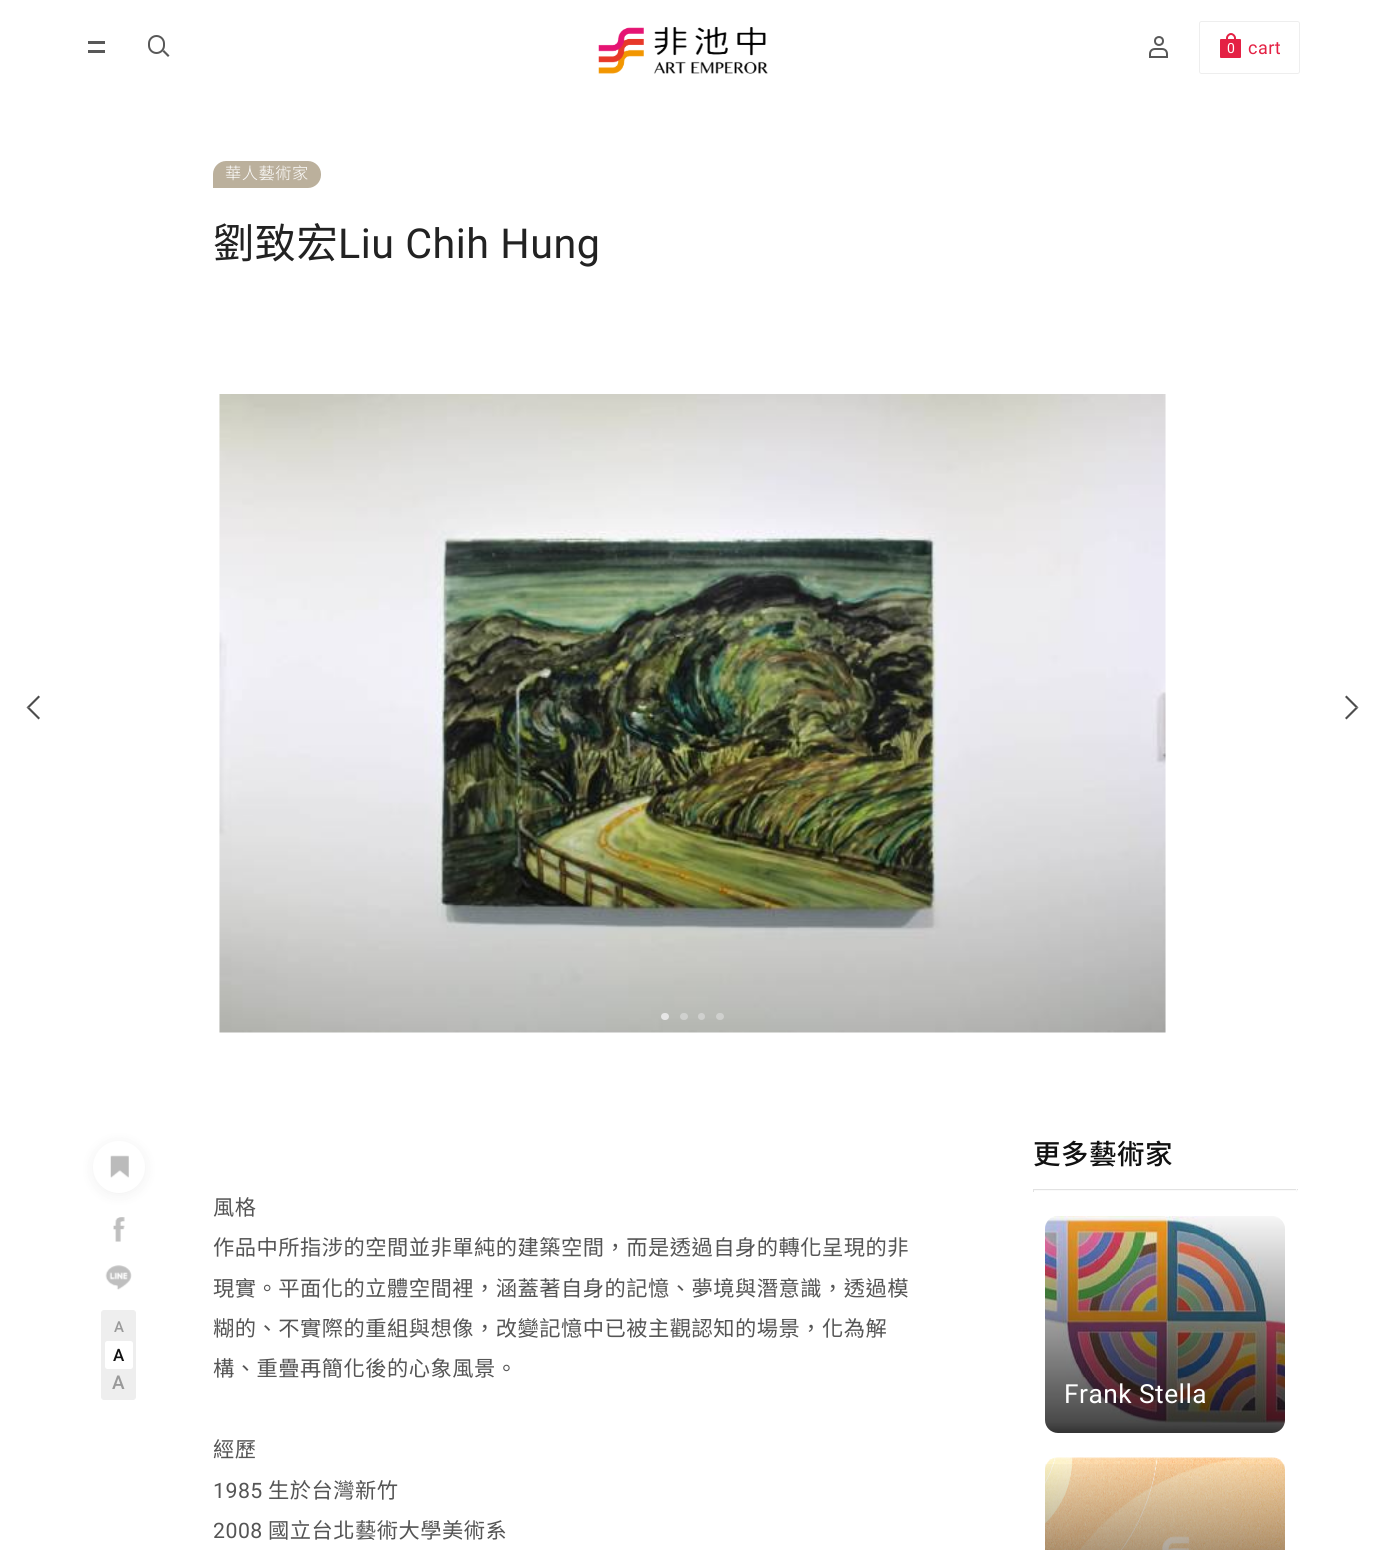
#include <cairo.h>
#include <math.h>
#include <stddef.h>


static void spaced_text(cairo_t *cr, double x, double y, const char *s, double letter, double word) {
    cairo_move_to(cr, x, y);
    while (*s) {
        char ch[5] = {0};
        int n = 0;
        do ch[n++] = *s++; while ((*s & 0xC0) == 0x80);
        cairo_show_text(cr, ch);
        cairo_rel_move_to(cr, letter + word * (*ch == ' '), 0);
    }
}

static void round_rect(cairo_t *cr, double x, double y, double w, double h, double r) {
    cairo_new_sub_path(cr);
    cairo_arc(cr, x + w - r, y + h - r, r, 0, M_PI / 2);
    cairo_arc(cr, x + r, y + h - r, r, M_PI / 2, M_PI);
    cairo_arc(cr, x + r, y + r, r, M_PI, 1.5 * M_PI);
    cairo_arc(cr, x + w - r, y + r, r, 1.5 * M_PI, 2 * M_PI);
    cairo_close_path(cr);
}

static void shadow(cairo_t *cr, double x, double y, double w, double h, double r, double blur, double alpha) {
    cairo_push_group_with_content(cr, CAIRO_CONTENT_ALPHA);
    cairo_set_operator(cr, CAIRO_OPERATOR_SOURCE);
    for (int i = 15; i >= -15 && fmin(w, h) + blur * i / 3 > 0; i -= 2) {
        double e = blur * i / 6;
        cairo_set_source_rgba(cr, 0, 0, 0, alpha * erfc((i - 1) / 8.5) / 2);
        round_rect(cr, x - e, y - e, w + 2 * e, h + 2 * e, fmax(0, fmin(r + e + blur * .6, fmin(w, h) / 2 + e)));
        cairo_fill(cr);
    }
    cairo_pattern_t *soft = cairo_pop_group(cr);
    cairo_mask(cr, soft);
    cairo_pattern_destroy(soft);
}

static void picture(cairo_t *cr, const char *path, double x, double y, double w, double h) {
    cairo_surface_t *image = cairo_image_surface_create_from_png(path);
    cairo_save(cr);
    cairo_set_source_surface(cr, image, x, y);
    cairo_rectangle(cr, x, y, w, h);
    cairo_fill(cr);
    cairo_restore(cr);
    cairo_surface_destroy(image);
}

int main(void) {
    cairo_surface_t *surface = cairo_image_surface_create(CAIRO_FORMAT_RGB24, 1385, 1550);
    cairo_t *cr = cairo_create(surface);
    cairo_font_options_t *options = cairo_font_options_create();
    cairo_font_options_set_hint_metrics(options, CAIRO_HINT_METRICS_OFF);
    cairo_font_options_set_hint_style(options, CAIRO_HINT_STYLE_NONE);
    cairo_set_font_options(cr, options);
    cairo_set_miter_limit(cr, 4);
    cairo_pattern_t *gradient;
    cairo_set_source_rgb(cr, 1, 1, 1);
    cairo_paint(cr);
    cairo_set_source_rgb(cr, 0.345, 0.345, 0.345);
    cairo_rectangle(cr, 88, 41, 17, 3);
    cairo_fill(cr);
    cairo_rectangle(cr, 88, 50, 17, 3);
    cairo_fill(cr);
    round_rect(cr, 149, 36, 15, 17, 7.5);
    cairo_stroke(cr);
    cairo_new_path(cr);
    cairo_move_to(cr, 164, 50);
    cairo_line_to(cr, 169.5, 55.5);
    cairo_line_to(cr, 168, 57);
    cairo_line_to(cr, 162.5, 51.5);
    cairo_close_path(cr);
    cairo_fill(cr);
    picture(cr, "img1.png", 598, 26, 170, 48);
    cairo_arc(cr, 1159, 41, 4, 0, 2 * M_PI);
    cairo_stroke(cr);
    cairo_new_path(cr);
    cairo_move_to(cr, 1155, 49);
    cairo_line_to(cr, 1162, 49);
    cairo_curve_to(cr, 1165, 49, 1167, 51, 1167, 54);
    cairo_line_to(cr, 1167, 57);
    cairo_line_to(cr, 1150, 57);
    cairo_line_to(cr, 1150, 54);
    cairo_curve_to(cr, 1150, 51, 1152, 49, 1155, 49);
    cairo_close_path(cr);
    cairo_stroke(cr);
    round_rect(cr, 1199.5, 21.5, 100, 52, 2);
    cairo_set_source_rgb(cr, 0.933, 0.933, 0.933);
    cairo_set_line_width(cr, 1);
    cairo_stroke(cr);
    cairo_set_source_rgb(cr, 0.894, 0.129, 0.267);
    round_rect(cr, 1220, 39, 21, 19, 1);
    cairo_fill(cr);
    cairo_new_path(cr);
    cairo_move_to(cr, 1231, 34);
    cairo_curve_to(cr, 1233, 34, 1235, 36, 1235, 38);
    cairo_line_to(cr, 1235, 42);
    cairo_line_to(cr, 1227, 42);
    cairo_line_to(cr, 1227, 38);
    cairo_curve_to(cr, 1227, 36, 1229, 34, 1231, 34);
    cairo_close_path(cr);
    cairo_set_line_width(cr, 2);
    cairo_stroke(cr);
    cairo_select_font_face(cr, "Roboto", CAIRO_FONT_SLANT_NORMAL, CAIRO_FONT_WEIGHT_NORMAL);
    cairo_set_font_size(cr, 14);
    cairo_set_source_rgb(cr, 1, 1, 1);
    cairo_move_to(cr, 1227, 53);
    cairo_show_text(cr, "0");
    cairo_set_font_size(cr, 18);
    cairo_set_source_rgb(cr, 0.894, 0.129, 0.267);
    spaced_text(cr, 1248, 54, "cart", 0.5, 0);
    cairo_set_source_rgb(cr, 0.733, 0.69, 0.612);
    cairo_new_path(cr);
    cairo_move_to(cr, 226, 161);
    cairo_line_to(cr, 308, 161);
    cairo_curve_to(cr, 315, 161, 321, 167, 321, 174);
    cairo_line_to(cr, 321, 175);
    cairo_curve_to(cr, 321, 182, 315, 188, 308, 188);
    cairo_line_to(cr, 213, 188);
    cairo_line_to(cr, 213, 174);
    cairo_curve_to(cr, 213, 167, 219, 161, 226, 161);
    cairo_close_path(cr);
    cairo_fill(cr);
    cairo_select_font_face(cr, "Noto Sans TC Light", CAIRO_FONT_SLANT_NORMAL, CAIRO_FONT_WEIGHT_NORMAL);
    cairo_set_font_size(cr, 16.25);
    cairo_set_source_rgb(cr, 1, 1, 1);
    spaced_text(cr, 225, 179, "華人藝術家", 0.5, 0);
    cairo_select_font_face(cr, "Noto Sans TC", CAIRO_FONT_SLANT_NORMAL, CAIRO_FONT_WEIGHT_NORMAL);
    cairo_set_font_size(cr, 41.25);
    cairo_set_source_rgb(cr, 0.133, 0.133, 0.133);
    spaced_text(cr, 213, 258, "劉致宏", 0.5, 0);
    cairo_select_font_face(cr, "Roboto", CAIRO_FONT_SLANT_NORMAL, CAIRO_FONT_WEIGHT_NORMAL);
    spaced_text(cr, 338, 258, "Liu Chih Hung", 0.5, 0);
    cairo_set_source_rgb(cr, 0.302, 0.302, 0.302);
    cairo_new_path(cr);
    cairo_move_to(cr, 38.5, 719.5);
    cairo_line_to(cr, 26.5, 707.5);
    cairo_line_to(cr, 29.5, 707.5);
    cairo_line_to(cr, 40, 718);
    cairo_close_path(cr);
    cairo_fill(cr);
    cairo_set_source_rgba(cr, 0, 0, 0, 0.7);
    cairo_new_path(cr);
    cairo_move_to(cr, 26.5, 707.5);
    cairo_line_to(cr, 38.5, 695.5);
    cairo_line_to(cr, 40, 697);
    cairo_line_to(cr, 29.5, 707.5);
    cairo_close_path(cr);
    cairo_fill(cr);
    picture(cr, "img2.png", 219, 394, 947, 639);
    cairo_set_source_rgb(cr, 0.302, 0.302, 0.302);
    cairo_new_path(cr);
    cairo_move_to(cr, 1346.5, 695.5);
    cairo_line_to(cr, 1358.5, 707.5);
    cairo_line_to(cr, 1355.5, 707.5);
    cairo_line_to(cr, 1345, 697);
    cairo_close_path(cr);
    cairo_fill(cr);
    cairo_new_path(cr);
    cairo_move_to(cr, 1358.5, 707.5);
    cairo_line_to(cr, 1346.5, 719.5);
    cairo_line_to(cr, 1345, 718);
    cairo_line_to(cr, 1355.5, 707.5);
    cairo_close_path(cr);
    cairo_fill(cr);
    cairo_set_source_rgb(cr, 0.902, 0.902, 0.902);
    round_rect(cr, 661, 1013, 8, 7, 3.5);
    cairo_fill(cr);
    cairo_set_source_rgba(cr, 0.902, 0.902, 0.902, 0.5);
    round_rect(cr, 680, 1013, 8, 7, 3.5);
    cairo_fill(cr);
    cairo_arc(cr, 701.5, 1016.5, 3.5, 0, 2 * M_PI);
    cairo_fill(cr);
    round_rect(cr, 716, 1013, 8, 7, 3.5);
    cairo_fill(cr);
    cairo_set_source_rgb(cr, 0.102, 0.102, 0.102);
    shadow(cr, 93, 1143, 52, 52, 26, 7, 0.07);
    cairo_set_source_rgb(cr, 1, 1, 1);
    cairo_arc(cr, 119, 1167, 26, 0, 2 * M_PI);
    cairo_fill(cr);
    picture(cr, "img3.png", 110, 1155, 19, 23);
    picture(cr, "img4.png", 113, 1217, 12, 25);
    picture(cr, "img5.png", 105, 1265, 27, 25);
    cairo_set_source_rgb(cr, 0.933, 0.933, 0.933);
    round_rect(cr, 101.5, 1310.5, 34, 89, 2.5);
    cairo_fill_preserve(cr);
    cairo_set_line_width(cr, 1);
    cairo_stroke(cr);
    cairo_select_font_face(cr, "Roboto Medium", CAIRO_FONT_SLANT_NORMAL, CAIRO_FONT_WEIGHT_NORMAL);
    cairo_set_font_size(cr, 15);
    cairo_set_source_rgb(cr, 0.6, 0.6, 0.6);
    cairo_move_to(cr, 114, 1332);
    cairo_show_text(cr, "A");
    cairo_set_source_rgb(cr, 1, 1, 1);
    round_rect(cr, 105, 1341, 28, 28, 2.5);
    cairo_fill(cr);
    cairo_set_font_size(cr, 17);
    cairo_set_source_rgb(cr, 0.067, 0.067, 0.067);
    cairo_move_to(cr, 113, 1361);
    cairo_show_text(cr, "A");
    cairo_set_font_size(cr, 19);
    cairo_set_source_rgb(cr, 0.6, 0.6, 0.6);
    cairo_move_to(cr, 112, 1389);
    cairo_show_text(cr, "A");
    cairo_select_font_face(cr, "Noto Sans TC", CAIRO_FONT_SLANT_NORMAL, CAIRO_FONT_WEIGHT_NORMAL);
    cairo_set_font_size(cr, 21.25);
    cairo_set_source_rgb(cr, 0.333, 0.333, 0.333);
    spaced_text(cr, 213, 1215, "風格", 0.5, 0);
    spaced_text(cr, 213, 1255, "作品中所指涉的空間並非單純的建築空間，而是透過自身的轉化呈現的非", 0.5, 0);
    spaced_text(cr, 213, 1296, "現實。平面化的立體空間裡，涵蓋著自身的記憶、夢境與潛意識，透過模", 0.5, 0);
    spaced_text(cr, 213, 1336, "糊的、不實際的重組與想像，改變記憶中已被主觀認知的場景，化為解", 0.5, 0);
    spaced_text(cr, 213, 1376, "構、重疊再簡化後的心象風景。", 0.5, 0);
    spaced_text(cr, 213, 1457, "經歷", 0.5, 0);
    cairo_select_font_face(cr, "Roboto", CAIRO_FONT_SLANT_NORMAL, CAIRO_FONT_WEIGHT_NORMAL);
    spaced_text(cr, 213, 1498, "1985", 0.5, 0);
    cairo_select_font_face(cr, "Noto Sans TC", CAIRO_FONT_SLANT_NORMAL, CAIRO_FONT_WEIGHT_NORMAL);
    spaced_text(cr, 268, 1498, "生於台灣新竹", 0.5, 0);
    cairo_select_font_face(cr, "Roboto", CAIRO_FONT_SLANT_NORMAL, CAIRO_FONT_WEIGHT_NORMAL);
    spaced_text(cr, 213, 1538, "2008", 0.5, 0);
    cairo_select_font_face(cr, "Noto Sans TC", CAIRO_FONT_SLANT_NORMAL, CAIRO_FONT_WEIGHT_NORMAL);
    spaced_text(cr, 268, 1538, "國立台北藝術大學美術系", 0.5, 0);
    cairo_select_font_face(cr, "Noto Sans TC Medium", CAIRO_FONT_SLANT_NORMAL, CAIRO_FONT_WEIGHT_NORMAL);
    cairo_set_font_size(cr, 27.5);
    cairo_set_source_rgb(cr, 0.067, 0.067, 0.067);
    spaced_text(cr, 1033, 1164, "更多藝術家", 0.5, 0);
    cairo_set_source_rgb(cr, 0.886, 0.886, 0.886);
    cairo_rectangle(cr, 1033, 1189, 265, 1);
    cairo_fill(cr);
    cairo_set_source_rgb(cr, 0.98, 0.98, 0.98);
    cairo_rectangle(cr, 1296, 1189, 1, 3);
    cairo_fill(cr);
    cairo_rectangle(cr, 1033, 1190, 265, 1);
    cairo_fill(cr);
    cairo_set_source_rgb(cr, 0.886, 0.886, 0.886);
    cairo_rectangle(cr, 1033, 1189, 1, 3);
    cairo_fill(cr);
    picture(cr, "img6.png", 1045, 1216, 240, 216);
    gradient = cairo_pattern_create_linear(1165, 1433, 1165, 1216);
    cairo_pattern_add_color_stop_rgba(gradient, 0, 0, 0, 0, 0.8);
    cairo_pattern_add_color_stop_rgba(gradient, 0.05, 0, 0, 0, 0.7);
    cairo_pattern_add_color_stop_rgba(gradient, 1, 0, 0, 0, 0);
    cairo_set_source(cr, gradient);
    cairo_pattern_destroy(gradient);
    round_rect(cr, 1045, 1216, 240, 217, 13);
    cairo_fill(cr);
    cairo_select_font_face(cr, "Roboto", CAIRO_FONT_SLANT_NORMAL, CAIRO_FONT_WEIGHT_NORMAL);
    cairo_set_font_size(cr, 26.25);
    cairo_set_source_rgb(cr, 1, 1, 1);
    spaced_text(cr, 1064, 1403, "Frank Stella", 0.5, 0);
    picture(cr, "img7.png", 1045, 1457, 240, 93);
    gradient = cairo_pattern_create_linear(1165, 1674, 1165, 1458);
    cairo_pattern_add_color_stop_rgba(gradient, 0, 0, 0, 0, 0.8);
    cairo_pattern_add_color_stop_rgba(gradient, 0.05, 0, 0, 0, 0.7);
    cairo_pattern_add_color_stop_rgba(gradient, 1, 0, 0, 0, 0);
    cairo_set_source(cr, gradient);
    cairo_pattern_destroy(gradient);
    cairo_rectangle(cr, 1045, 1464, 240, 86);
    cairo_fill(cr);
    cairo_surface_write_to_png(surface, "page.png");
    cairo_font_options_destroy(options);
    cairo_destroy(cr);
    cairo_surface_destroy(surface);
    return 0;
}
